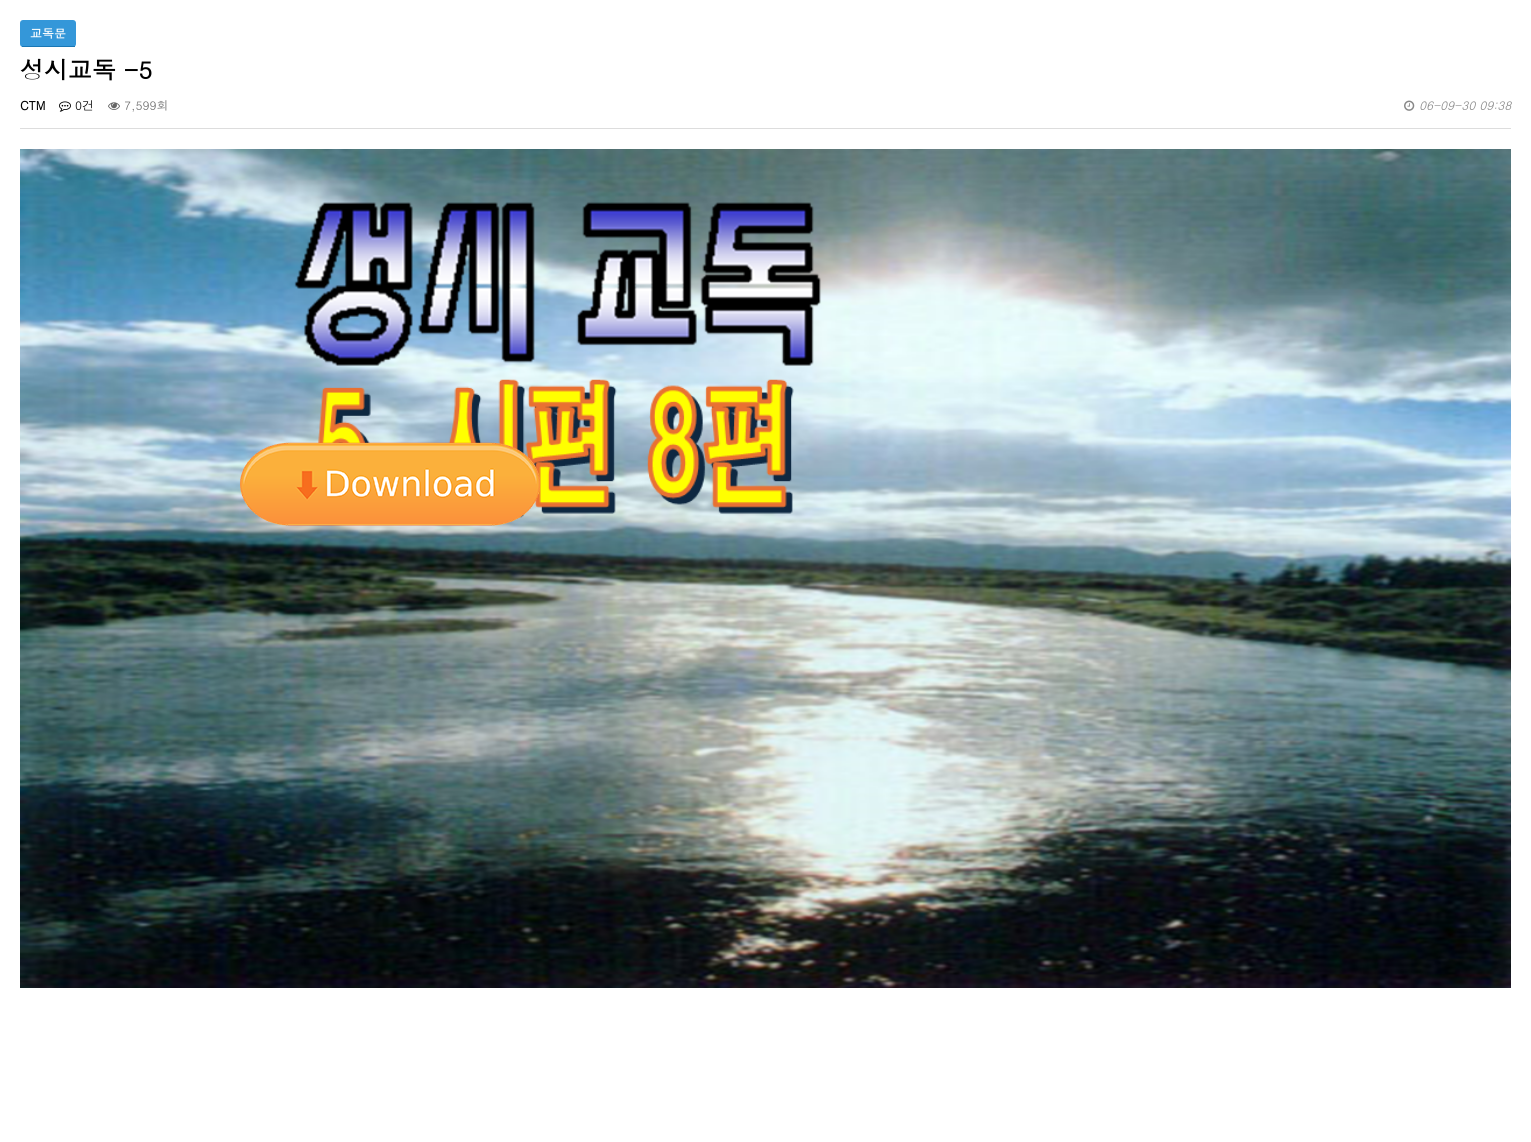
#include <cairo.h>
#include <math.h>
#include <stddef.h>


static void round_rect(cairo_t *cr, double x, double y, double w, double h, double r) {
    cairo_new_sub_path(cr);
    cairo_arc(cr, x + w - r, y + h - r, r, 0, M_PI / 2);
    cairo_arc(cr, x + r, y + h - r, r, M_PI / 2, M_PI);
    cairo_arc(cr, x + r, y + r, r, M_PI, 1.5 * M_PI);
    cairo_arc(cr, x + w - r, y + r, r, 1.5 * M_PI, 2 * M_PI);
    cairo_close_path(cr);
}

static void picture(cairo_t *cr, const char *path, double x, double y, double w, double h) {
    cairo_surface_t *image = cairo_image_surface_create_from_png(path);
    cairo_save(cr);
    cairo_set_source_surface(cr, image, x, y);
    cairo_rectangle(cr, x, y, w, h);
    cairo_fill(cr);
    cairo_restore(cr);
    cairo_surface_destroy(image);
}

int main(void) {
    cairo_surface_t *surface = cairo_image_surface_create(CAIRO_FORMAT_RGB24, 1531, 1142);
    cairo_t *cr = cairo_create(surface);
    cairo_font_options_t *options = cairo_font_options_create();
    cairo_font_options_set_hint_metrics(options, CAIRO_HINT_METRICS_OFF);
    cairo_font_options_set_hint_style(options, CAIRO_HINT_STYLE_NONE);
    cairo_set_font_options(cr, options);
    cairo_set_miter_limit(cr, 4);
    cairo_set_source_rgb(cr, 1, 1, 1);
    cairo_paint(cr);
    cairo_set_source_rgb(cr, 0.204, 0.592, 0.851);
    round_rect(cr, 20, 20, 56, 27, 3);
    cairo_fill(cr);
    cairo_set_source_rgb(cr, 0.098, 0.467, 0.71);
    cairo_rectangle(cr, 22, 46, 53, 1);
    cairo_fill(cr);
    cairo_select_font_face(cr, "Dotum", CAIRO_FONT_SLANT_NORMAL, CAIRO_FONT_WEIGHT_BOLD);
    cairo_set_font_size(cr, 12);
    cairo_set_source_rgb(cr, 1, 1, 1);
    cairo_move_to(cr, 30, 38);
    cairo_show_text(cr, "교독문");
    cairo_set_font_size(cr, 24);
    cairo_set_source_rgb(cr, 0, 0, 0);
    cairo_move_to(cr, 20, 79);
    cairo_show_text(cr, "성시교독 -5");
    cairo_set_source_rgb(cr, 0.867, 0.867, 0.867);
    cairo_rectangle(cr, 20, 128, 1491, 1);
    cairo_fill(cr);
    cairo_set_font_size(cr, 12);
    cairo_set_source_rgb(cr, 0, 0, 0);
    cairo_move_to(cr, 20, 110);
    cairo_show_text(cr, "CTM");
    picture(cr, "img1.png", 59, 101, 12, 11);
    cairo_select_font_face(cr, "Dotum", CAIRO_FONT_SLANT_NORMAL, CAIRO_FONT_WEIGHT_NORMAL);
    cairo_move_to(cr, 75, 110);
    cairo_show_text(cr, "0건");
    picture(cr, "img2.png", 108, 102, 12, 8);
    cairo_set_source_rgb(cr, 0.4, 0.4, 0.4);
    cairo_move_to(cr, 124, 110);
    cairo_show_text(cr, "7,599회");
    picture(cr, "img3.png", 1404, 100, 11, 11);
    cairo_select_font_face(cr, "Dotum", CAIRO_FONT_SLANT_ITALIC, CAIRO_FONT_WEIGHT_NORMAL);
    cairo_set_source_rgb(cr, 0.533, 0.533, 0.533);
    cairo_move_to(cr, 1419, 110);
    cairo_show_text(cr, "06-09-30 09:38");
    picture(cr, "img4.png", 20, 149, 1491, 839);
    picture(cr, "img5.png", 240, 442, 300, 84);
    cairo_surface_write_to_png(surface, "page.png");
    cairo_font_options_destroy(options);
    cairo_destroy(cr);
    cairo_surface_destroy(surface);
    return 0;
}
